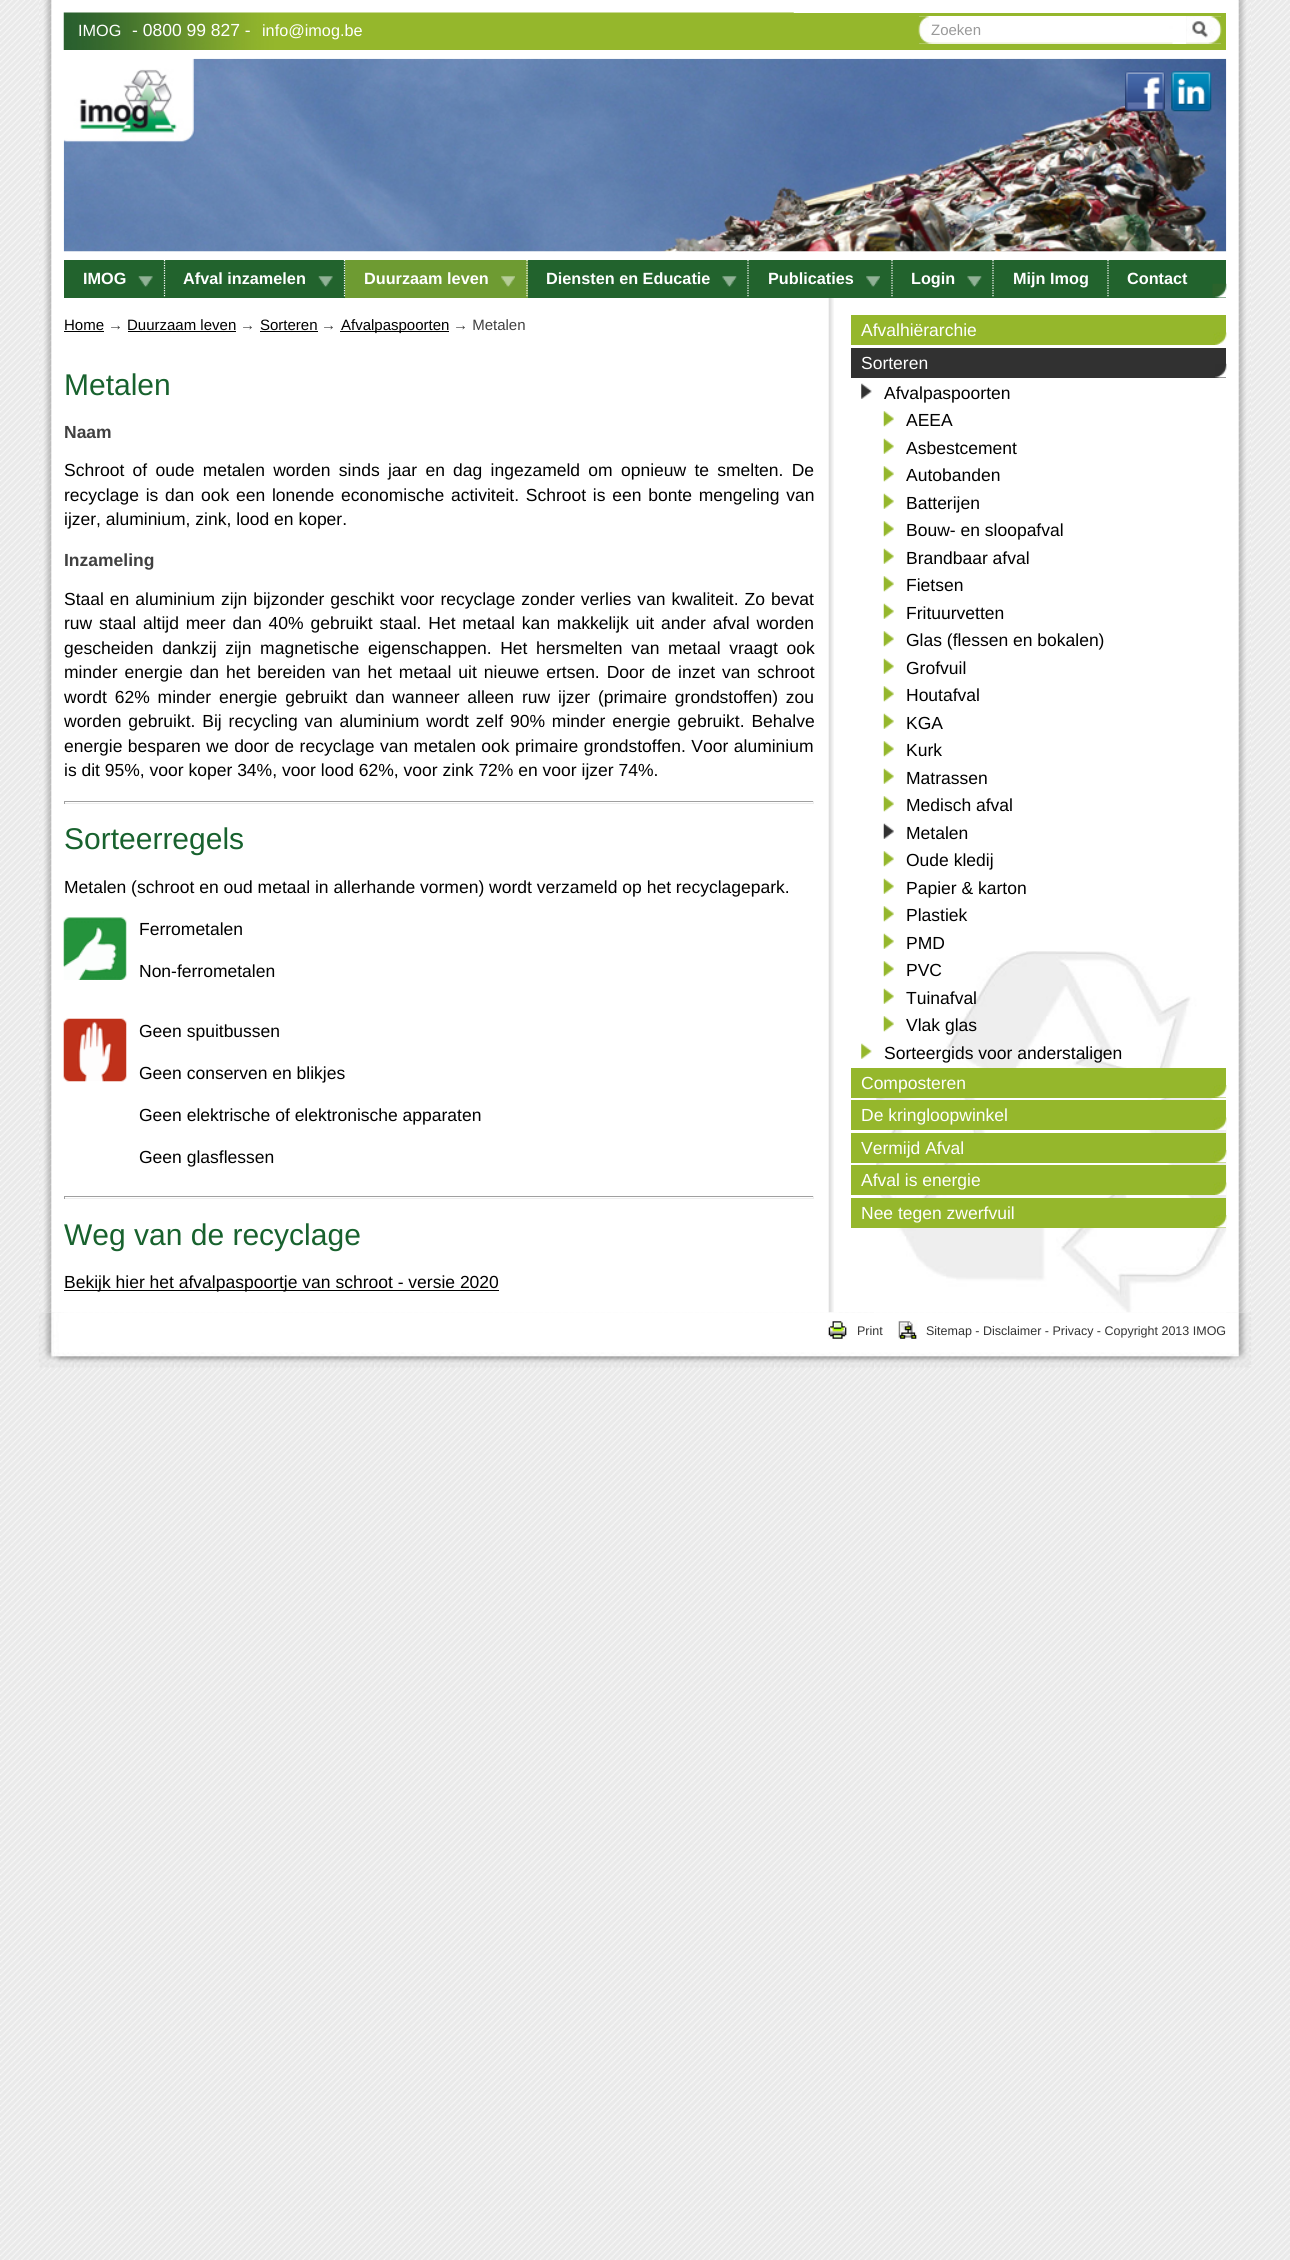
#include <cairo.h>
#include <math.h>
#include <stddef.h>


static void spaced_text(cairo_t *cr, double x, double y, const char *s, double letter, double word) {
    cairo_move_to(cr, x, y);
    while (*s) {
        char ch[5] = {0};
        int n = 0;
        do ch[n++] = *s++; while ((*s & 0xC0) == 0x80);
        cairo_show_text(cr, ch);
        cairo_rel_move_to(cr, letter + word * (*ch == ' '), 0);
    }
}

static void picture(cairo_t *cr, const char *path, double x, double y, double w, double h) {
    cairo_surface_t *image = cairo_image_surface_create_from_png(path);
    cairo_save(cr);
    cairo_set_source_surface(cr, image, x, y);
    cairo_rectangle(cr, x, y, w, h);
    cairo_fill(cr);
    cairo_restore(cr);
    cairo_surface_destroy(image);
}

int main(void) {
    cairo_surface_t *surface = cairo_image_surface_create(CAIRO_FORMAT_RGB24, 1290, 2260);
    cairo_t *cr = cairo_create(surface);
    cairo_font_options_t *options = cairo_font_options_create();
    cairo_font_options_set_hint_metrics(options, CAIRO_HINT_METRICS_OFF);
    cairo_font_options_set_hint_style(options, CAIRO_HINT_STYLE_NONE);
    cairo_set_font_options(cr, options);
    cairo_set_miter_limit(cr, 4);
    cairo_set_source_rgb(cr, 1, 1, 1);
    cairo_paint(cr);
    picture(cr, "img1.png", 0, 0, 1290, 2260);
    picture(cr, "img2.png", 39, 0, 1212, 1313);
    cairo_set_source_rgb(cr, 0.584, 0.718, 0.173);
    cairo_rectangle(cr, 793, 13, 433, 37);
    cairo_fill(cr);
    picture(cr, "img3.png", 63, 12, 731, 38);
    cairo_select_font_face(cr, "Liberation Sans", CAIRO_FONT_SLANT_NORMAL, CAIRO_FONT_WEIGHT_NORMAL);
    cairo_set_font_size(cr, 16.25);
    cairo_set_source_rgb(cr, 1, 1, 1);
    cairo_move_to(cr, 78, 36);
    cairo_show_text(cr, "IMOG");
    cairo_set_font_size(cr, 17.5);
    cairo_move_to(cr, 132, 36);
    cairo_show_text(cr, "- 0800 99 827 -");
    cairo_set_font_size(cr, 16.25);
    cairo_move_to(cr, 262, 36);
    cairo_show_text(cr, "info@imog.be");
    cairo_rectangle(cr, 919, 16, 267, 28);
    cairo_fill(cr);
    picture(cr, "img4.png", 918, 16, 255, 28);
    cairo_set_font_size(cr, 15);
    cairo_set_source_rgb(cr, 0.6, 0.6, 0.6);
    cairo_move_to(cr, 931, 35);
    cairo_show_text(cr, "Zoeken");
    cairo_set_source_rgb(cr, 0.937, 0.937, 0.937);
    cairo_rectangle(cr, 1186, 16, 35, 28);
    cairo_fill(cr);
    picture(cr, "img5.png", 1186, 16, 36, 28);
    picture(cr, "img6.png", 63, 58, 1164, 194);
    picture(cr, "img7.png", 1125, 71, 40, 41);
    picture(cr, "img8.png", 1171, 71, 41, 41);
    cairo_set_source_rgb(cr, 0.133, 0.388, 0.176);
    cairo_rectangle(cr, 528, 260, 698, 38);
    cairo_fill(cr);
    picture(cr, "img9.png", 1212, 283, 15, 15);
    cairo_rectangle(cr, 64, 260, 281, 38);
    cairo_fill(cr);
    cairo_new_path(cr);
    cairo_move_to(cr, 164.5, 260);
    cairo_line_to(cr, 164.5, 297.5);
    cairo_set_source_rgb(cr, 1, 1, 1);
    cairo_set_line_width(cr, 1.2);
    cairo_set_dash(cr, (double[]){1.25, 1.25}, 2, 0);
    cairo_stroke(cr);
    cairo_select_font_face(cr, "Liberation Sans", CAIRO_FONT_SLANT_NORMAL, CAIRO_FONT_WEIGHT_BOLD);
    cairo_set_font_size(cr, 16.25);
    cairo_move_to(cr, 83, 284);
    cairo_show_text(cr, "IMOG");
    picture(cr, "img10.png", 138, 276, 15, 11);
    cairo_set_source_rgb(cr, 0.431, 0.608, 0.196);
    cairo_rectangle(cr, 345, 260, 183, 38);
    cairo_fill(cr);
    cairo_new_path(cr);
    cairo_move_to(cr, 344.5, 260);
    cairo_line_to(cr, 344.5, 297.5);
    cairo_set_source_rgb(cr, 1, 1, 1);
    cairo_stroke(cr);
    cairo_move_to(cr, 183, 284);
    cairo_show_text(cr, "Afval inzamelen");
    picture(cr, "img11.png", 318, 276, 15, 11);
    cairo_new_path(cr);
    cairo_move_to(cr, 527, 260);
    cairo_line_to(cr, 527, 297.5);
    cairo_stroke(cr);
    cairo_move_to(cr, 364, 284);
    cairo_show_text(cr, "Duurzaam leven");
    picture(cr, "img12.png", 501, 276, 14, 11);
    cairo_new_path(cr);
    cairo_move_to(cr, 748, 260);
    cairo_line_to(cr, 748, 297.5);
    cairo_stroke(cr);
    cairo_move_to(cr, 546, 284);
    cairo_show_text(cr, "Diensten en Educatie");
    picture(cr, "img13.png", 722, 276, 15, 11);
    cairo_new_path(cr);
    cairo_move_to(cr, 892, 260);
    cairo_line_to(cr, 892, 297.5);
    cairo_stroke(cr);
    cairo_move_to(cr, 768, 284);
    cairo_show_text(cr, "Publicaties");
    picture(cr, "img14.png", 866, 276, 14, 11);
    cairo_new_path(cr);
    cairo_move_to(cr, 993, 260);
    cairo_line_to(cr, 993, 297.5);
    cairo_stroke(cr);
    cairo_move_to(cr, 911, 284);
    cairo_show_text(cr, "Login");
    picture(cr, "img15.png", 967, 276, 15, 11);
    cairo_new_path(cr);
    cairo_move_to(cr, 1108, 260);
    cairo_line_to(cr, 1108, 297.5);
    cairo_stroke(cr);
    cairo_move_to(cr, 1013, 284);
    cairo_show_text(cr, "Mijn Imog");
    cairo_move_to(cr, 1127, 284);
    cairo_show_text(cr, "Contact");
    picture(cr, "img16.png", 64, 298, 775, 1015);
    cairo_select_font_face(cr, "Liberation Sans", CAIRO_FONT_SLANT_NORMAL, CAIRO_FONT_WEIGHT_NORMAL);
    cairo_set_font_size(cr, 15);
    cairo_set_source_rgb(cr, 0, 0, 0);
    cairo_move_to(cr, 64, 330);
    cairo_show_text(cr, "Home");
    cairo_rectangle(cr, 64, 331, 40, 1);
    cairo_fill(cr);
    cairo_set_source_rgb(cr, 0.251, 0.251, 0.251);
    cairo_move_to(cr, 108, 330);
    cairo_show_text(cr, "→");
    cairo_set_source_rgb(cr, 0, 0, 0);
    cairo_move_to(cr, 127, 330);
    cairo_show_text(cr, "Duurzaam leven");
    cairo_rectangle(cr, 128, 331, 108, 1);
    cairo_fill(cr);
    cairo_set_source_rgb(cr, 0.251, 0.251, 0.251);
    cairo_move_to(cr, 240, 330);
    cairo_show_text(cr, "→");
    cairo_set_source_rgb(cr, 0, 0, 0);
    cairo_move_to(cr, 260, 330);
    cairo_show_text(cr, "Sorteren");
    cairo_rectangle(cr, 260, 331, 58, 1);
    cairo_fill(cr);
    cairo_set_source_rgb(cr, 0.251, 0.251, 0.251);
    cairo_move_to(cr, 321, 330);
    cairo_show_text(cr, "→");
    cairo_set_source_rgb(cr, 0, 0, 0);
    cairo_rectangle(cr, 340, 331, 109, 1);
    cairo_fill(cr);
    cairo_move_to(cr, 341, 330);
    cairo_show_text(cr, "Afvalpaspoorten");
    cairo_set_source_rgb(cr, 0.251, 0.251, 0.251);
    cairo_move_to(cr, 453, 330);
    cairo_show_text(cr, "→ Metalen");
    cairo_set_font_size(cr, 30);
    cairo_set_source_rgb(cr, 0.094, 0.384, 0.18);
    cairo_move_to(cr, 64, 395);
    cairo_show_text(cr, "Metalen");
    cairo_select_font_face(cr, "Liberation Sans", CAIRO_FONT_SLANT_NORMAL, CAIRO_FONT_WEIGHT_BOLD);
    cairo_set_font_size(cr, 17.5);
    cairo_set_source_rgb(cr, 0.251, 0.251, 0.251);
    cairo_move_to(cr, 64, 438);
    cairo_show_text(cr, "Naam");
    cairo_select_font_face(cr, "Liberation Sans", CAIRO_FONT_SLANT_NORMAL, CAIRO_FONT_WEIGHT_NORMAL);
    cairo_set_source_rgb(cr, 0, 0, 0);
    spaced_text(cr, 64, 476, "Schroot of oude metalen worden sinds jaar en dag ingezameld om opnieuw te smelten. De", 0, 3.4);
    spaced_text(cr, 64, 501, "recyclage is dan ook een lonende economische activiteit. Schroot is een bonte mengeling van", 0, 1.9);
    cairo_move_to(cr, 64, 525);
    cairo_show_text(cr, "ijzer, aluminium, zink, lood en koper.");
    cairo_select_font_face(cr, "Liberation Sans", CAIRO_FONT_SLANT_NORMAL, CAIRO_FONT_WEIGHT_BOLD);
    cairo_set_source_rgb(cr, 0.251, 0.251, 0.251);
    cairo_move_to(cr, 64, 566);
    cairo_show_text(cr, "Inzameling");
    cairo_select_font_face(cr, "Liberation Sans", CAIRO_FONT_SLANT_NORMAL, CAIRO_FONT_WEIGHT_NORMAL);
    cairo_set_source_rgb(cr, 0, 0, 0);
    spaced_text(cr, 64, 605, "Staal en aluminium zijn bijzonder geschikt voor recyclage zonder verlies van kwaliteit. Zo bevat", 0, 1.1);
    spaced_text(cr, 64, 629, "ruw staal altijd meer dan 40% gebruikt staal. Het metaal kan makkelijk uit ander afval worden", 0, 2);
    spaced_text(cr, 64, 654, "gescheiden dankzij zijn magnetische eigenschappen. Het hersmelten van metaal vraagt ook", 0, 3.75);
    spaced_text(cr, 64, 678, "minder energie dan het bereiden van het metaal uit nieuwe ertsen. Door de inzet van schroot", 0, 2.1);
    spaced_text(cr, 64, 703, "wordt 62% minder energie gebruikt dan wanneer alleen ruw ijzer (primaire grondstoffen) zou", 0, 3);
    spaced_text(cr, 64, 727, "worden gebruikt. Bij recycling van aluminium wordt zelf 90% minder energie gebruikt. Behalve", 0, 2);
    spaced_text(cr, 64, 752, "energie besparen we door de recyclage van metalen ook primaire grondstoffen. Voor aluminium", 0, 0.6);
    cairo_move_to(cr, 64, 776);
    cairo_show_text(cr, "is dit 95%, voor koper 34%, voor lood 62%, voor zink 72% en voor ijzer 74%.");
    cairo_set_source_rgb(cr, 0.624, 0.624, 0.624);
    cairo_rectangle(cr, 64, 801, 750, 1);
    cairo_fill(cr);
    cairo_set_source_rgb(cr, 0.933, 0.933, 0.933);
    cairo_rectangle(cr, 813, 801, 1, 3);
    cairo_fill(cr);
    cairo_rectangle(cr, 64, 803, 750, 1);
    cairo_fill(cr);
    cairo_set_source_rgb(cr, 0.624, 0.624, 0.624);
    cairo_rectangle(cr, 64, 801, 1, 3);
    cairo_fill(cr);
    cairo_set_font_size(cr, 30);
    cairo_set_source_rgb(cr, 0.094, 0.384, 0.18);
    cairo_move_to(cr, 64, 849);
    cairo_show_text(cr, "Sorteerregels");
    cairo_set_font_size(cr, 17.5);
    cairo_set_source_rgb(cr, 0, 0, 0);
    cairo_move_to(cr, 64, 893);
    cairo_show_text(cr, "Metalen (schroot en oud metaal in allerhande vormen) wordt verzameld op het recyclagepark.");
    picture(cr, "img17.png", 63, 917, 64, 63);
    cairo_move_to(cr, 139, 935);
    cairo_show_text(cr, "Ferrometalen");
    cairo_move_to(cr, 139, 977);
    cairo_show_text(cr, "Non-ferrometalen");
    picture(cr, "img18.png", 63, 1018, 64, 64);
    cairo_move_to(cr, 139, 1037);
    cairo_show_text(cr, "Geen spuitbussen");
    cairo_move_to(cr, 139, 1079);
    cairo_show_text(cr, "Geen conserven en blikjes");
    cairo_move_to(cr, 139, 1121);
    cairo_show_text(cr, "Geen elektrische of elektronische apparaten");
    cairo_move_to(cr, 139, 1163);
    cairo_show_text(cr, "Geen glasflessen");
    cairo_set_source_rgb(cr, 0.624, 0.624, 0.624);
    cairo_rectangle(cr, 64, 1196, 750, 1);
    cairo_fill(cr);
    cairo_set_source_rgb(cr, 0.933, 0.933, 0.933);
    cairo_rectangle(cr, 813, 1196, 1, 3);
    cairo_fill(cr);
    cairo_rectangle(cr, 64, 1198, 750, 1);
    cairo_fill(cr);
    cairo_set_source_rgb(cr, 0.624, 0.624, 0.624);
    cairo_rectangle(cr, 64, 1196, 1, 3);
    cairo_fill(cr);
    cairo_set_font_size(cr, 30);
    cairo_set_source_rgb(cr, 0.094, 0.384, 0.18);
    cairo_move_to(cr, 64, 1245);
    cairo_show_text(cr, "Weg van de recyclage");
    cairo_set_source_rgb(cr, 0, 0, 0);
    cairo_rectangle(cr, 64, 1290, 435, 1);
    cairo_fill(cr);
    cairo_set_font_size(cr, 17.5);
    cairo_move_to(cr, 64, 1288);
    cairo_show_text(cr, "Bekijk hier het afvalpaspoortje van schroot - versie 2020");
    picture(cr, "img19.png", 874, 951, 353, 362);
    cairo_set_source_rgb(cr, 0.584, 0.718, 0.173);
    cairo_rectangle(cr, 851, 315, 375, 30);
    cairo_fill(cr);
    picture(cr, "img20.png", 1213, 332, 14, 13);
    cairo_set_source_rgb(cr, 1, 1, 1);
    cairo_move_to(cr, 861, 336);
    cairo_show_text(cr, "Afvalhiërarchie");
    cairo_set_source_rgb(cr, 0.192, 0.192, 0.192);
    cairo_rectangle(cr, 851, 348, 375, 30);
    cairo_fill(cr);
    picture(cr, "img21.png", 1215, 363, 12, 15);
    cairo_set_source_rgb(cr, 1, 1, 1);
    cairo_move_to(cr, 861, 369);
    cairo_show_text(cr, "Sorteren");
    picture(cr, "img22.png", 861, 383, 11, 16);
    cairo_set_source_rgb(cr, 0, 0, 0);
    cairo_move_to(cr, 884, 399);
    cairo_show_text(cr, "Afvalpaspoorten");
    picture(cr, "img23.png", 883, 411, 11, 16);
    cairo_move_to(cr, 906, 426);
    cairo_show_text(cr, "AEEA");
    picture(cr, "img24.png", 883, 438, 11, 16);
    cairo_move_to(cr, 906, 454);
    cairo_show_text(cr, "Asbestcement");
    picture(cr, "img23.png", 883, 466, 11, 16);
    cairo_move_to(cr, 906, 481);
    cairo_show_text(cr, "Autobanden");
    picture(cr, "img24.png", 883, 493, 11, 16);
    cairo_move_to(cr, 906, 509);
    cairo_show_text(cr, "Batterijen");
    picture(cr, "img23.png", 883, 521, 11, 16);
    cairo_move_to(cr, 906, 536);
    cairo_show_text(cr, "Bouw- en sloopafval");
    picture(cr, "img24.png", 883, 548, 11, 16);
    cairo_move_to(cr, 906, 564);
    cairo_show_text(cr, "Brandbaar afval");
    picture(cr, "img23.png", 883, 576, 11, 16);
    cairo_move_to(cr, 906, 591);
    cairo_show_text(cr, "Fietsen");
    picture(cr, "img24.png", 883, 603, 11, 16);
    cairo_move_to(cr, 906, 619);
    cairo_show_text(cr, "Frituurvetten");
    picture(cr, "img23.png", 883, 631, 11, 16);
    cairo_move_to(cr, 906, 646);
    cairo_show_text(cr, "Glas (flessen en bokalen)");
    picture(cr, "img24.png", 883, 658, 11, 16);
    cairo_move_to(cr, 906, 674);
    cairo_show_text(cr, "Grofvuil");
    picture(cr, "img23.png", 883, 686, 11, 16);
    cairo_move_to(cr, 906, 701);
    cairo_show_text(cr, "Houtafval");
    picture(cr, "img24.png", 883, 713, 11, 16);
    cairo_move_to(cr, 906, 729);
    cairo_show_text(cr, "KGA");
    picture(cr, "img23.png", 883, 741, 11, 16);
    cairo_move_to(cr, 906, 756);
    cairo_show_text(cr, "Kurk");
    picture(cr, "img24.png", 883, 768, 11, 16);
    cairo_move_to(cr, 906, 784);
    cairo_show_text(cr, "Matrassen");
    picture(cr, "img23.png", 883, 796, 11, 16);
    cairo_move_to(cr, 906, 811);
    cairo_show_text(cr, "Medisch afval");
    picture(cr, "img25.png", 883, 823, 11, 16);
    cairo_move_to(cr, 906, 839);
    cairo_show_text(cr, "Metalen");
    picture(cr, "img23.png", 883, 851, 11, 16);
    cairo_move_to(cr, 906, 866);
    cairo_show_text(cr, "Oude kledij");
    picture(cr, "img24.png", 883, 878, 11, 16);
    cairo_move_to(cr, 906, 894);
    cairo_show_text(cr, "Papier & karton");
    picture(cr, "img23.png", 883, 906, 11, 16);
    cairo_move_to(cr, 906, 921);
    cairo_show_text(cr, "Plastiek");
    picture(cr, "img24.png", 883, 933, 11, 16);
    cairo_move_to(cr, 906, 949);
    cairo_show_text(cr, "PMD");
    picture(cr, "img23.png", 883, 961, 11, 16);
    cairo_move_to(cr, 906, 976);
    cairo_show_text(cr, "PVC");
    picture(cr, "img24.png", 883, 988, 11, 16);
    cairo_move_to(cr, 906, 1004);
    cairo_show_text(cr, "Tuinafval");
    picture(cr, "img23.png", 883, 1016, 11, 16);
    cairo_move_to(cr, 906, 1031);
    cairo_show_text(cr, "Vlak glas");
    picture(cr, "img26.png", 861, 1043, 11, 16);
    cairo_move_to(cr, 884, 1059);
    cairo_show_text(cr, "Sorteergids voor anderstaligen");
    cairo_set_source_rgb(cr, 0.584, 0.718, 0.173);
    cairo_rectangle(cr, 851, 1068, 375, 30);
    cairo_fill(cr);
    picture(cr, "img27.png", 1213, 1085, 14, 13);
    cairo_set_source_rgb(cr, 1, 1, 1);
    cairo_move_to(cr, 861, 1089);
    cairo_show_text(cr, "Composteren");
    cairo_set_source_rgb(cr, 0.584, 0.718, 0.173);
    cairo_rectangle(cr, 851, 1100, 375, 30);
    cairo_fill(cr);
    picture(cr, "img28.png", 1213, 1117, 14, 13);
    cairo_set_source_rgb(cr, 1, 1, 1);
    cairo_move_to(cr, 861, 1121);
    cairo_show_text(cr, "De kringloopwinkel");
    cairo_set_source_rgb(cr, 0.584, 0.718, 0.173);
    cairo_rectangle(cr, 851, 1133, 375, 30);
    cairo_fill(cr);
    picture(cr, "img29.png", 1213, 1150, 14, 13);
    cairo_set_source_rgb(cr, 1, 1, 1);
    cairo_move_to(cr, 861, 1154);
    cairo_show_text(cr, "Vermijd Afval");
    cairo_set_source_rgb(cr, 0.584, 0.718, 0.173);
    cairo_rectangle(cr, 851, 1165, 375, 30);
    cairo_fill(cr);
    picture(cr, "img30.png", 1213, 1182, 14, 13);
    cairo_set_source_rgb(cr, 1, 1, 1);
    cairo_move_to(cr, 861, 1186);
    cairo_show_text(cr, "Afval is energie");
    cairo_set_source_rgb(cr, 0.584, 0.718, 0.173);
    cairo_rectangle(cr, 851, 1198, 375, 30);
    cairo_fill(cr);
    picture(cr, "img31.png", 1213, 1215, 14, 13);
    cairo_set_source_rgb(cr, 1, 1, 1);
    cairo_move_to(cr, 861, 1219);
    cairo_show_text(cr, "Nee tegen zwerfvuil");
    picture(cr, "img32.png", 38, 1312, 1214, 56);
    picture(cr, "img33.png", 827, 1320, 21, 20);
    cairo_set_font_size(cr, 12.5);
    cairo_set_source_rgb(cr, 0.2, 0.2, 0.2);
    cairo_move_to(cr, 857, 1335);
    cairo_show_text(cr, "Print");
    picture(cr, "img34.png", 898, 1320, 20, 20);
    cairo_move_to(cr, 926, 1335);
    cairo_show_text(cr, "Sitemap - Disclaimer - Privacy - Copyright 2013 IMOG");
    cairo_surface_write_to_png(surface, "page.png");
    cairo_font_options_destroy(options);
    cairo_destroy(cr);
    cairo_surface_destroy(surface);
    return 0;
}
